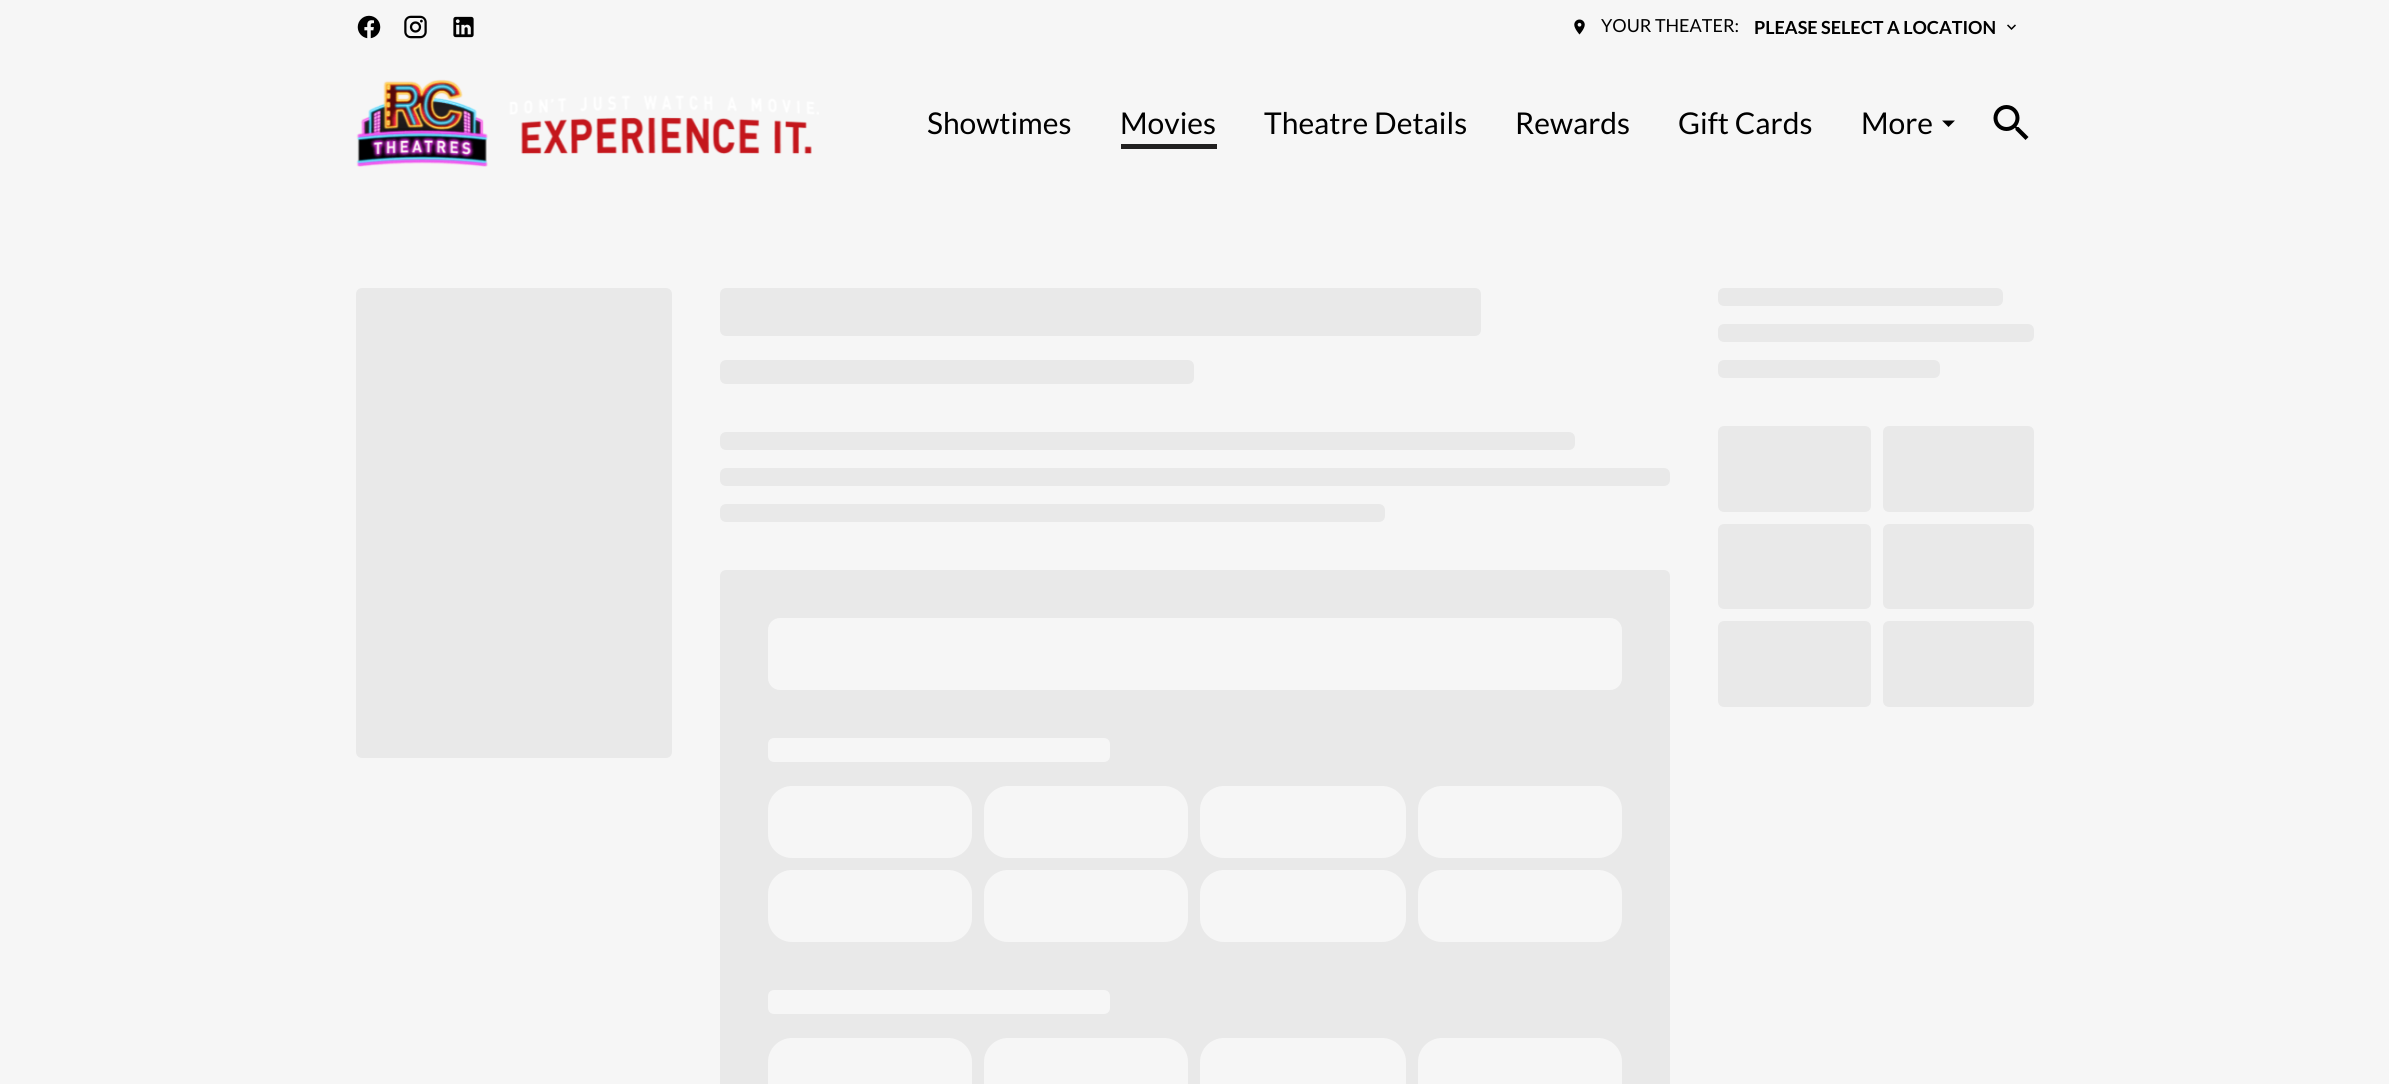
#include <cairo.h>
#include <math.h>
#include <stddef.h>


static void round_rect(cairo_t *cr, double x, double y, double w, double h, double r) {
    cairo_new_sub_path(cr);
    cairo_arc(cr, x + w - r, y + h - r, r, 0, M_PI / 2);
    cairo_arc(cr, x + r, y + h - r, r, M_PI / 2, M_PI);
    cairo_arc(cr, x + r, y + r, r, M_PI, 1.5 * M_PI);
    cairo_arc(cr, x + w - r, y + r, r, 1.5 * M_PI, 2 * M_PI);
    cairo_close_path(cr);
}

static void picture(cairo_t *cr, const char *path, double x, double y, double w, double h) {
    cairo_surface_t *image = cairo_image_surface_create_from_png(path);
    cairo_save(cr);
    cairo_set_source_surface(cr, image, x, y);
    cairo_rectangle(cr, x, y, w, h);
    cairo_fill(cr);
    cairo_restore(cr);
    cairo_surface_destroy(image);
}

int main(void) {
    cairo_surface_t *surface = cairo_image_surface_create(CAIRO_FORMAT_RGB24, 2389, 1084);
    cairo_t *cr = cairo_create(surface);
    cairo_font_options_t *options = cairo_font_options_create();
    cairo_font_options_set_hint_metrics(options, CAIRO_HINT_METRICS_OFF);
    cairo_font_options_set_hint_style(options, CAIRO_HINT_STYLE_NONE);
    cairo_set_font_options(cr, options);
    cairo_set_miter_limit(cr, 4);
    cairo_set_source_rgb(cr, 0.961, 0.961, 0.961);
    cairo_paint(cr);
    picture(cr, "img1.png", 357, 15, 24, 24);
    picture(cr, "img2.png", 404, 15, 23, 24);
    picture(cr, "img3.png", 453, 16, 21, 22);
    picture(cr, "img4.png", 1574, 19, 11, 16);
    cairo_select_font_face(cr, "Lato", CAIRO_FONT_SLANT_NORMAL, CAIRO_FONT_WEIGHT_NORMAL);
    cairo_set_font_size(cr, 18);
    cairo_set_source_rgb(cr, 0, 0, 0);
    cairo_move_to(cr, 1601, 32);
    cairo_show_text(cr, "YOUR THEATER:");
    cairo_select_font_face(cr, "Lato", CAIRO_FONT_SLANT_NORMAL, CAIRO_FONT_WEIGHT_BOLD);
    cairo_move_to(cr, 1754, 34);
    cairo_show_text(cr, "PLEASE SELECT A LOCATION");
    picture(cr, "img5.png", 2007, 24, 9, 6);
    picture(cr, "img6.png", 356, 79, 463, 88);
    cairo_select_font_face(cr, "Lato", CAIRO_FONT_SLANT_NORMAL, CAIRO_FONT_WEIGHT_NORMAL);
    cairo_set_font_size(cr, 30);
    cairo_move_to(cr, 927, 134);
    cairo_show_text(cr, "Showtimes");
    cairo_move_to(cr, 1120, 134);
    cairo_show_text(cr, "Movies");
    cairo_set_source_rgb(cr, 0.129, 0.125, 0.125);
    cairo_rectangle(cr, 1121, 144, 96, 5);
    cairo_fill(cr);
    cairo_set_source_rgb(cr, 0, 0, 0);
    cairo_move_to(cr, 1264, 134);
    cairo_show_text(cr, "Theatre Details");
    cairo_move_to(cr, 1515, 134);
    cairo_show_text(cr, "Rewards");
    cairo_move_to(cr, 1678, 134);
    cairo_show_text(cr, "Gift Cards");
    cairo_move_to(cr, 1861, 134);
    cairo_show_text(cr, "More");
    cairo_new_path(cr);
    cairo_move_to(cr, 1942, 120.5);
    cairo_line_to(cr, 1948.5, 127);
    cairo_line_to(cr, 1955, 120.5);
    cairo_close_path(cr);
    cairo_fill(cr);
    picture(cr, "img7.png", 1993, 105, 36, 35);
    cairo_set_source_rgb(cr, 0.914, 0.914, 0.914);
    round_rect(cr, 356, 288, 316, 470, 6);
    cairo_fill(cr);
    round_rect(cr, 720, 288, 761, 48, 6);
    cairo_fill(cr);
    round_rect(cr, 720, 360, 474, 24, 6);
    cairo_fill(cr);
    round_rect(cr, 1718, 288, 285, 18, 6);
    cairo_fill(cr);
    round_rect(cr, 1718, 324, 316, 18, 6);
    cairo_fill(cr);
    round_rect(cr, 1718, 360, 222, 18, 6);
    cairo_fill(cr);
    round_rect(cr, 1718, 426, 153, 86, 6);
    cairo_fill(cr);
    round_rect(cr, 1883, 426, 151, 86, 6);
    cairo_fill(cr);
    round_rect(cr, 1718, 524, 153, 85, 6);
    cairo_fill(cr);
    round_rect(cr, 1883, 524, 151, 85, 6);
    cairo_fill(cr);
    round_rect(cr, 1718, 621, 153, 86, 6);
    cairo_fill(cr);
    round_rect(cr, 1883, 621, 151, 86, 6);
    cairo_fill(cr);
    round_rect(cr, 720, 432, 855, 18, 6);
    cairo_fill(cr);
    round_rect(cr, 720, 468, 950, 18, 6);
    cairo_fill(cr);
    round_rect(cr, 720, 504, 665, 18, 6);
    cairo_fill(cr);
    round_rect(cr, 720, 570, 950, 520, 6);
    cairo_fill(cr);
    cairo_set_source_rgb(cr, 0.961, 0.961, 0.961);
    round_rect(cr, 768, 618, 854, 72, 12);
    cairo_fill(cr);
    round_rect(cr, 768, 738, 342, 24, 6);
    cairo_fill(cr);
    round_rect(cr, 768, 786, 204, 72, 24);
    cairo_fill(cr);
    round_rect(cr, 984, 786, 204, 72, 24);
    cairo_fill(cr);
    round_rect(cr, 1200, 786, 206, 72, 24);
    cairo_fill(cr);
    round_rect(cr, 1418, 786, 204, 72, 24);
    cairo_fill(cr);
    round_rect(cr, 768, 870, 204, 72, 24);
    cairo_fill(cr);
    round_rect(cr, 984, 870, 204, 72, 24);
    cairo_fill(cr);
    round_rect(cr, 1200, 870, 206, 72, 24);
    cairo_fill(cr);
    round_rect(cr, 1418, 870, 204, 72, 24);
    cairo_fill(cr);
    round_rect(cr, 768, 990, 342, 24, 6);
    cairo_fill(cr);
    round_rect(cr, 768, 1038, 204, 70, 24);
    cairo_fill(cr);
    round_rect(cr, 984, 1038, 204, 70, 24);
    cairo_fill(cr);
    round_rect(cr, 1200, 1038, 206, 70, 24);
    cairo_fill(cr);
    round_rect(cr, 1418, 1038, 204, 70, 24);
    cairo_fill(cr);
    cairo_surface_write_to_png(surface, "page.png");
    cairo_font_options_destroy(options);
    cairo_destroy(cr);
    cairo_surface_destroy(surface);
    return 0;
}
